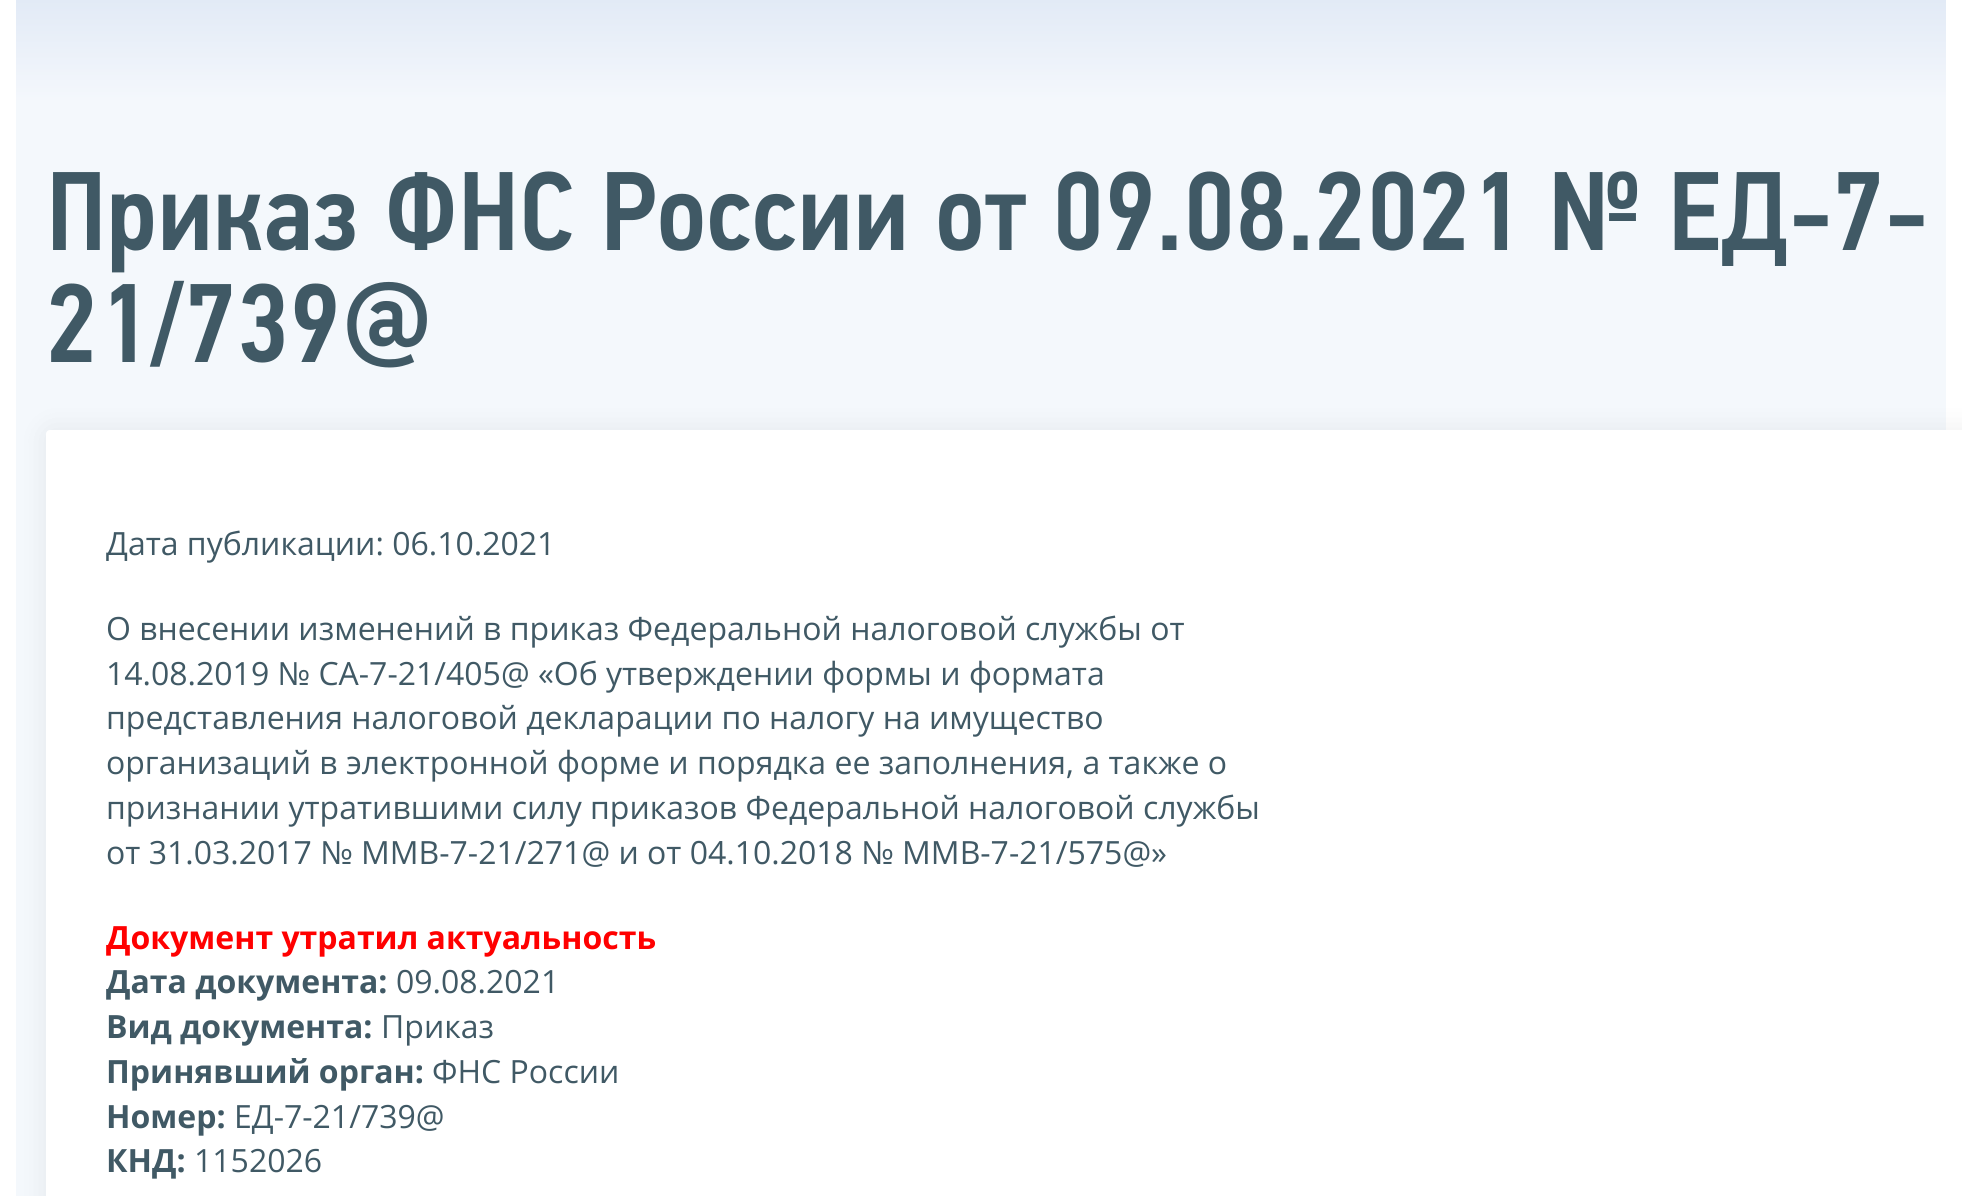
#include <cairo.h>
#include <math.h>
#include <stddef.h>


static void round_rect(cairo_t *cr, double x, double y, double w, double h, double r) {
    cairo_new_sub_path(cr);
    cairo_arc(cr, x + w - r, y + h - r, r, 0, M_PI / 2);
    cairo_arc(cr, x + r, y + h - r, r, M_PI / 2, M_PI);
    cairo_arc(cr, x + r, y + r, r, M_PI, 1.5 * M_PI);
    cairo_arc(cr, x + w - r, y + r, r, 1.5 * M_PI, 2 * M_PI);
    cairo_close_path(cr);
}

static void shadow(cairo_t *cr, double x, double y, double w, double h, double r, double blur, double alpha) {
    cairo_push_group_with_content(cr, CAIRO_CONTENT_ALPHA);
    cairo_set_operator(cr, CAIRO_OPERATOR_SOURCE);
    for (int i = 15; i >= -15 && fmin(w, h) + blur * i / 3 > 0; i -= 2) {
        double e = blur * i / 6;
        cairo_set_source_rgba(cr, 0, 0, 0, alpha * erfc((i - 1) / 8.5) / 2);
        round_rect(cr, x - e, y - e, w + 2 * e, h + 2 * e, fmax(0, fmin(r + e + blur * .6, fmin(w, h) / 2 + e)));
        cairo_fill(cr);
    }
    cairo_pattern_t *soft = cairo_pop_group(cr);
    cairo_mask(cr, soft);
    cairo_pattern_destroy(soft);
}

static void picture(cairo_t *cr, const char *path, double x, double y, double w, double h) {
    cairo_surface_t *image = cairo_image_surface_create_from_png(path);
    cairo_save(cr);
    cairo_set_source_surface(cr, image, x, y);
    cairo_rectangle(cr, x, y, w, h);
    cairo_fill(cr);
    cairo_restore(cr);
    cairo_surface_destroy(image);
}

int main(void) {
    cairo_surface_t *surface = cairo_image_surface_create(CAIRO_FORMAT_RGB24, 1962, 1196);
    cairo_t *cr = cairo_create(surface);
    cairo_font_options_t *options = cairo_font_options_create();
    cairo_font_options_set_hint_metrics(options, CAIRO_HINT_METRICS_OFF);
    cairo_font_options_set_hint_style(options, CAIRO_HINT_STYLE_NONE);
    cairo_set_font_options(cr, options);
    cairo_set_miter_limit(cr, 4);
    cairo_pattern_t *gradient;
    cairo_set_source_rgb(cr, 1, 1, 1);
    cairo_paint(cr);
    cairo_set_source_rgb(cr, 0.957, 0.969, 0.988);
    cairo_rectangle(cr, 16, 100, 1930, 1096);
    cairo_fill(cr);
    gradient = cairo_pattern_create_linear(981, 0, 981, 100);
    cairo_pattern_add_color_stop_rgba(gradient, 0, 0.886, 0.918, 0.965, 1);
    cairo_pattern_add_color_stop_rgba(gradient, 1, 0.957, 0.969, 0.988, 1);
    cairo_set_source(cr, gradient);
    cairo_pattern_destroy(gradient);
    cairo_rectangle(cr, 16, 0, 1930, 100);
    cairo_fill(cr);
    picture(cr, "img1.png", 53, 171, 1871, 102);
    picture(cr, "img2.png", 50, 280, 377, 88);
    cairo_set_source_rgb(cr, 0, 0, 0);
    shadow(cr, 46, 430, 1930, 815, 4, 15, 0.07);
    cairo_set_source_rgb(cr, 1, 1, 1);
    round_rect(cr, 46, 430, 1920, 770, 4);
    cairo_fill(cr);
    cairo_select_font_face(cr, "Open Sans", CAIRO_FONT_SLANT_NORMAL, CAIRO_FONT_WEIGHT_NORMAL);
    cairo_set_font_size(cr, 32);
    cairo_set_source_rgb(cr, 0.251, 0.349, 0.396);
    cairo_move_to(cr, 106, 555);
    cairo_show_text(cr, "Дата публикации: 06.10.2021");
    cairo_move_to(cr, 106, 640);
    cairo_show_text(cr, "О внесении изменений в приказ Федеральной налоговой службы от");
    cairo_move_to(cr, 106, 685);
    cairo_show_text(cr, "14.08.2019 № СА-7-21/405@ «Об утверждении формы и формата");
    cairo_move_to(cr, 106, 729);
    cairo_show_text(cr, "представления налоговой декларации по налогу на имущество");
    cairo_move_to(cr, 106, 774);
    cairo_show_text(cr, "организаций в электронной форме и порядка ее заполнения, а также о");
    cairo_move_to(cr, 106, 819);
    cairo_show_text(cr, "признании утратившими силу приказов Федеральной налоговой службы");
    cairo_move_to(cr, 106, 864);
    cairo_show_text(cr, "от 31.03.2017 № ММВ-7-21/271@ и от 04.10.2018 № ММВ-7-21/575@»");
    cairo_select_font_face(cr, "Open Sans", CAIRO_FONT_SLANT_NORMAL, CAIRO_FONT_WEIGHT_BOLD);
    cairo_set_source_rgb(cr, 1, 0, 0);
    cairo_move_to(cr, 106, 949);
    cairo_show_text(cr, "Документ утратил актуальность");
    cairo_set_source_rgb(cr, 0.251, 0.349, 0.396);
    cairo_move_to(cr, 106, 993);
    cairo_show_text(cr, "Дата документа:");
    cairo_select_font_face(cr, "Open Sans", CAIRO_FONT_SLANT_NORMAL, CAIRO_FONT_WEIGHT_NORMAL);
    cairo_move_to(cr, 396, 993);
    cairo_show_text(cr, "09.08.2021");
    cairo_select_font_face(cr, "Open Sans", CAIRO_FONT_SLANT_NORMAL, CAIRO_FONT_WEIGHT_BOLD);
    cairo_move_to(cr, 106, 1038);
    cairo_show_text(cr, "Вид документа:");
    cairo_select_font_face(cr, "Open Sans", CAIRO_FONT_SLANT_NORMAL, CAIRO_FONT_WEIGHT_NORMAL);
    cairo_move_to(cr, 381, 1038);
    cairo_show_text(cr, "Приказ");
    cairo_select_font_face(cr, "Open Sans", CAIRO_FONT_SLANT_NORMAL, CAIRO_FONT_WEIGHT_BOLD);
    cairo_move_to(cr, 106, 1083);
    cairo_show_text(cr, "Принявший орган:");
    cairo_select_font_face(cr, "Open Sans", CAIRO_FONT_SLANT_NORMAL, CAIRO_FONT_WEIGHT_NORMAL);
    cairo_move_to(cr, 432, 1083);
    cairo_show_text(cr, "ФНС России");
    cairo_select_font_face(cr, "Open Sans", CAIRO_FONT_SLANT_NORMAL, CAIRO_FONT_WEIGHT_BOLD);
    cairo_move_to(cr, 106, 1128);
    cairo_show_text(cr, "Номер:");
    cairo_select_font_face(cr, "Open Sans", CAIRO_FONT_SLANT_NORMAL, CAIRO_FONT_WEIGHT_NORMAL);
    cairo_move_to(cr, 234, 1128);
    cairo_show_text(cr, "ЕД-7-21/739@");
    cairo_select_font_face(cr, "Open Sans", CAIRO_FONT_SLANT_NORMAL, CAIRO_FONT_WEIGHT_BOLD);
    cairo_move_to(cr, 106, 1172);
    cairo_show_text(cr, "КНД:");
    cairo_select_font_face(cr, "Open Sans", CAIRO_FONT_SLANT_NORMAL, CAIRO_FONT_WEIGHT_NORMAL);
    cairo_move_to(cr, 194, 1172);
    cairo_show_text(cr, "1152026");
    cairo_surface_write_to_png(surface, "page.png");
    cairo_font_options_destroy(options);
    cairo_destroy(cr);
    cairo_surface_destroy(surface);
    return 0;
}
